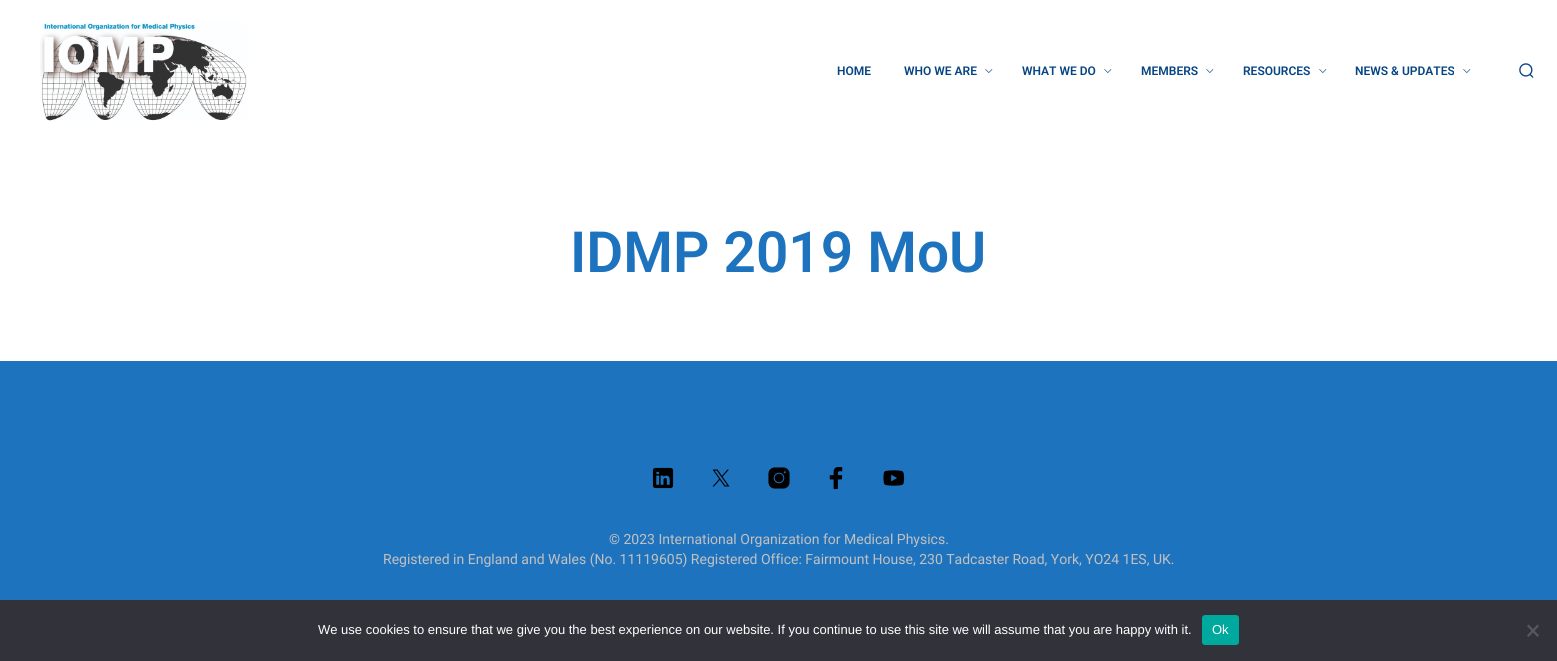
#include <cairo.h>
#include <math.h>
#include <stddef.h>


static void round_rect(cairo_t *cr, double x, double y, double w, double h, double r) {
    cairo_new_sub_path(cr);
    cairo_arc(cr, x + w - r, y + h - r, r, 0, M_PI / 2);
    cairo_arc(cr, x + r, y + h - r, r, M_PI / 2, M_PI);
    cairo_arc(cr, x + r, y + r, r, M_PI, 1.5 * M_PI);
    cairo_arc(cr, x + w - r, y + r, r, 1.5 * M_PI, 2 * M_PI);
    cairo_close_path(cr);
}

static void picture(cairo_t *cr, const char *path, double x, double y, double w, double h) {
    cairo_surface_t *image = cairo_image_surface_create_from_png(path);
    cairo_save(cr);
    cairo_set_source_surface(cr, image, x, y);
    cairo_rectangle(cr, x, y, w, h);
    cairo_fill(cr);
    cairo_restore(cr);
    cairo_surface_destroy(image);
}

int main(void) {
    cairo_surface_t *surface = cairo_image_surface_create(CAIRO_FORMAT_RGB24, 1557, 661);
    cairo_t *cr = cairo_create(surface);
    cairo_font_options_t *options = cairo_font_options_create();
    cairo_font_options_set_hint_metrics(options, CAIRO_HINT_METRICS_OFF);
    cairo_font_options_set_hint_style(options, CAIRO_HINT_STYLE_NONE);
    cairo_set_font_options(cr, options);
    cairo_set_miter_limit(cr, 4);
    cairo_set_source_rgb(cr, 1, 1, 1);
    cairo_paint(cr);
    picture(cr, "img1.png", 40, 22, 207, 99);
    cairo_select_font_face(cr, "Roboto SemiBold", CAIRO_FONT_SLANT_NORMAL, CAIRO_FONT_WEIGHT_NORMAL);
    cairo_set_font_size(cr, 12);
    cairo_set_source_rgb(cr, 0.027, 0.271, 0.518);
    cairo_move_to(cr, 837, 75);
    cairo_show_text(cr, "HOME");
    cairo_move_to(cr, 904, 75);
    cairo_show_text(cr, "WHO WE ARE");
    picture(cr, "img2.png", 985, 69, 8, 4);
    cairo_move_to(cr, 1022, 75);
    cairo_show_text(cr, "WHAT WE DO");
    picture(cr, "img2.png", 1104, 69, 8, 4);
    cairo_move_to(cr, 1141, 75);
    cairo_show_text(cr, "MEMBERS");
    picture(cr, "img2.png", 1206, 69, 8, 4);
    cairo_move_to(cr, 1243, 75);
    cairo_show_text(cr, "RESOURCES");
    picture(cr, "img2.png", 1319, 69, 8, 4);
    cairo_move_to(cr, 1355, 75);
    cairo_show_text(cr, "NEWS & UPDATES");
    picture(cr, "img2.png", 1463, 69, 8, 4);
    picture(cr, "img3.png", 1519, 63, 15, 15);
    cairo_set_font_size(cr, 56.75);
    cairo_set_source_rgb(cr, 0.118, 0.451, 0.745);
    cairo_move_to(cr, 570, 272);
    cairo_show_text(cr, "IDMP 2019 MoU");
    cairo_rectangle(cr, 0, 361, 1557, 239);
    cairo_fill(cr);
    picture(cr, "img4.png", 652, 467, 22, 22);
    picture(cr, "img5.png", 712, 469, 18, 18);
    picture(cr, "img6.png", 768, 467, 22, 22);
    picture(cr, "img7.png", 829, 467, 14, 23);
    picture(cr, "img8.png", 883, 470, 22, 16);
    cairo_select_font_face(cr, "Roboto", CAIRO_FONT_SLANT_NORMAL, CAIRO_FONT_WEIGHT_NORMAL);
    cairo_set_font_size(cr, 14);
    cairo_set_source_rgb(cr, 0.757, 0.757, 0.757);
    cairo_move_to(cr, 609, 544);
    cairo_show_text(cr, "© 2023 International Organization for Medical Physics.");
    cairo_move_to(cr, 383, 564);
    cairo_show_text(cr, "Registered in England and Wales (No. 11119605) Registered Office: Fairmount House, 230 Tadcaster Road, York, YO24 1ES, UK.");
    cairo_set_source_rgb(cr, 0.196, 0.196, 0.227);
    cairo_rectangle(cr, 0, 600, 1557, 61);
    cairo_fill(cr);
    cairo_select_font_face(cr, "Liberation Sans", CAIRO_FONT_SLANT_NORMAL, CAIRO_FONT_WEIGHT_NORMAL);
    cairo_set_font_size(cr, 13);
    cairo_set_source_rgb(cr, 1, 1, 1);
    cairo_move_to(cr, 318, 634);
    cairo_show_text(cr, "We use cookies to ensure that we give you the best experience on our website. If you continue to use this site we will assume that you are happy with it.");
    cairo_set_source_rgb(cr, 0, 0.663, 0.616);
    round_rect(cr, 1202, 615, 37, 30, 3);
    cairo_fill(cr);
    cairo_set_source_rgb(cr, 1, 1, 1);
    cairo_move_to(cr, 1212, 634);
    cairo_show_text(cr, "Ok");
    cairo_set_source_rgb(cr, 0.349, 0.349, 0.365);
    cairo_new_path(cr);
    cairo_move_to(cr, 1537.5, 624.5);
    cairo_line_to(cr, 1539, 626);
    cairo_line_to(cr, 1528.5, 637);
    cairo_line_to(cr, 1527, 635.5);
    cairo_close_path(cr);
    cairo_fill(cr);
    cairo_new_path(cr);
    cairo_move_to(cr, 1527, 626);
    cairo_line_to(cr, 1528.5, 624.5);
    cairo_line_to(cr, 1539, 635.5);
    cairo_line_to(cr, 1537.5, 637);
    cairo_close_path(cr);
    cairo_fill(cr);
    cairo_surface_write_to_png(surface, "page.png");
    cairo_font_options_destroy(options);
    cairo_destroy(cr);
    cairo_surface_destroy(surface);
    return 0;
}
